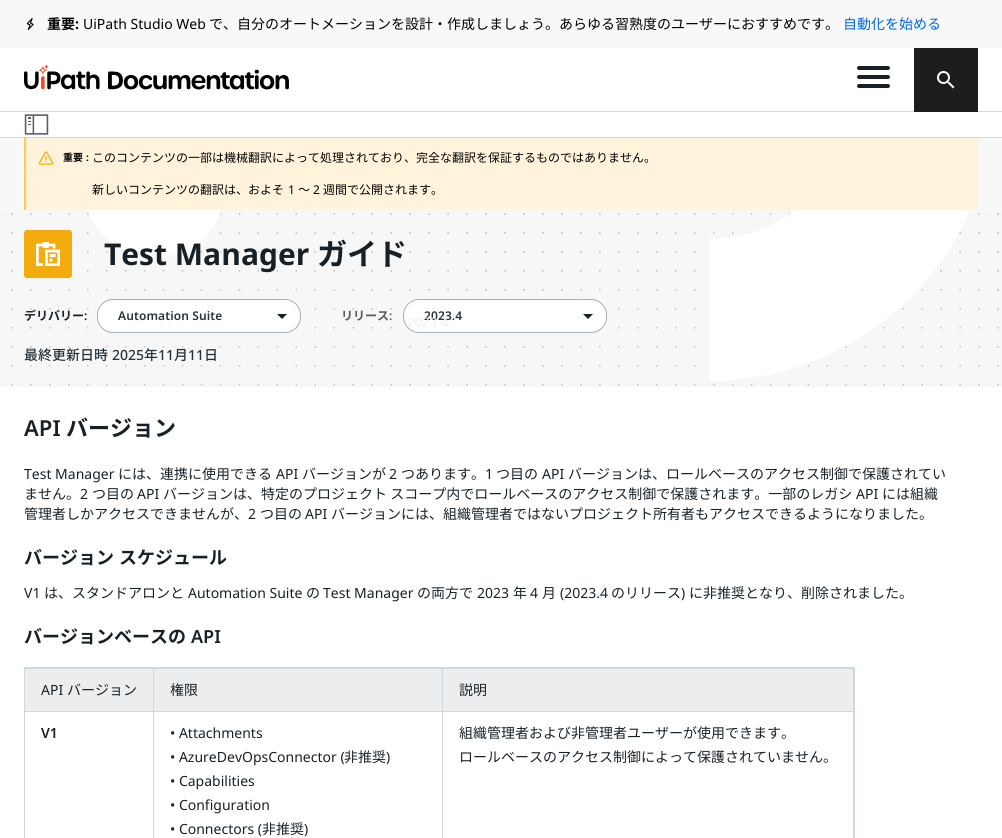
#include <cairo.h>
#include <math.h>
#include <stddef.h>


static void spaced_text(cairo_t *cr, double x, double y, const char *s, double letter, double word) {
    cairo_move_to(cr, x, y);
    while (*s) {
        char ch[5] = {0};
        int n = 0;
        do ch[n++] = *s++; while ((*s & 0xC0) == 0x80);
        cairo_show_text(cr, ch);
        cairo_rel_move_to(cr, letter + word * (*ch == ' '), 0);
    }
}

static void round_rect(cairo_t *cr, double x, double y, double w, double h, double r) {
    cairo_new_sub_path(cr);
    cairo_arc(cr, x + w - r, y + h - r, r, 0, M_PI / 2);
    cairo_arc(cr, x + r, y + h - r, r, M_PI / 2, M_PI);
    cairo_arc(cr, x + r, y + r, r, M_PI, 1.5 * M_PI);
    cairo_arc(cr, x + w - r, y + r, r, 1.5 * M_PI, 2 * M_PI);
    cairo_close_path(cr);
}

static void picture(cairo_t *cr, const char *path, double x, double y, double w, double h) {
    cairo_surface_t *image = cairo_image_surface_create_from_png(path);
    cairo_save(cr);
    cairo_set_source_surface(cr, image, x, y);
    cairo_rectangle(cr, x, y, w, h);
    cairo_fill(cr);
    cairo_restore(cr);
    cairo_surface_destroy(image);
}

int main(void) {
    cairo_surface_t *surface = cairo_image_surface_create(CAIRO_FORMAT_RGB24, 1002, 838);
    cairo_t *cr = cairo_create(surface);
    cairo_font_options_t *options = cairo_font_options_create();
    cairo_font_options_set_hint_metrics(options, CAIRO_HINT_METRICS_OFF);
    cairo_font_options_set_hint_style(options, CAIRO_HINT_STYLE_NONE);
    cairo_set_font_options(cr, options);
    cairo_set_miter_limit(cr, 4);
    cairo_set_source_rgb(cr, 1, 1, 1);
    cairo_paint(cr);
    cairo_set_source_rgb(cr, 0.969, 0.969, 0.969);
    cairo_rectangle(cr, 0, 0, 1002, 48);
    cairo_fill(cr);
    picture(cr, "img1.png", 26, 18, 8, 12);
    cairo_select_font_face(cr, "Noto Sans JP", CAIRO_FONT_SLANT_NORMAL, CAIRO_FONT_WEIGHT_BOLD);
    cairo_set_font_size(cr, 14);
    cairo_set_source_rgb(cr, 0, 0, 0);
    cairo_move_to(cr, 47, 29);
    cairo_show_text(cr, "重要");
    cairo_select_font_face(cr, "Noto Sans", CAIRO_FONT_SLANT_NORMAL, CAIRO_FONT_WEIGHT_BOLD);
    cairo_move_to(cr, 75, 29);
    cairo_show_text(cr, ":");
    cairo_select_font_face(cr, "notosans", CAIRO_FONT_SLANT_NORMAL, CAIRO_FONT_WEIGHT_NORMAL);
    cairo_move_to(cr, 83, 29);
    cairo_show_text(cr, "UiPath Studio Web");
    cairo_select_font_face(cr, "Noto Sans JP", CAIRO_FONT_SLANT_NORMAL, CAIRO_FONT_WEIGHT_NORMAL);
    cairo_move_to(cr, 209, 29);
    cairo_show_text(cr, "で、自分のオートメーションを設計・作成しましょう。あらゆる習熟度のユーザーにおすすめです。");
    cairo_set_source_rgb(cr, 0, 0.404, 0.875);
    cairo_move_to(cr, 843, 29);
    cairo_show_text(cr, "自動化を始める");
    cairo_set_source_rgb(cr, 0.812, 0.847, 0.867);
    cairo_rectangle(cr, 0, 111, 1002, 1);
    cairo_fill(cr);
    picture(cr, "img2.png", 24, 64, 265, 26);
    cairo_set_source_rgb(cr, 0.094, 0.125, 0.153);
    round_rect(cr, 857, 66, 33, 4, 2);
    cairo_fill(cr);
    round_rect(cr, 857, 75, 33, 4, 2);
    cairo_fill(cr);
    round_rect(cr, 857, 84, 33, 4, 2);
    cairo_fill(cr);
    cairo_set_source_rgb(cr, 0.114, 0.114, 0.118);
    cairo_rectangle(cr, 914, 48, 64, 64);
    cairo_fill(cr);
    picture(cr, "img3.png", 937, 71, 18, 18);
    cairo_set_source_rgb(cr, 0.812, 0.847, 0.867);
    cairo_rectangle(cr, 0, 137, 1002, 1);
    cairo_fill(cr);
    picture(cr, "img4.png", 24, 114, 25, 21);
    cairo_set_source_rgb(cr, 0.969, 0.969, 0.969);
    cairo_rectangle(cr, 0, 138, 1002, 72);
    cairo_fill(cr);
    cairo_set_source_rgb(cr, 1, 0.953, 0.859);
    cairo_rectangle(cr, 26, 138, 952, 72);
    cairo_fill(cr);
    cairo_set_source_rgb(cr, 1, 0.792, 0.333);
    cairo_rectangle(cr, 24, 138, 2, 72);
    cairo_fill(cr);
    picture(cr, "img5.png", 38, 151, 16, 14);
    cairo_select_font_face(cr, "Noto Sans JP", CAIRO_FONT_SLANT_NORMAL, CAIRO_FONT_WEIGHT_BOLD);
    cairo_set_font_size(cr, 10);
    cairo_set_source_rgb(cr, 0, 0, 0);
    cairo_move_to(cr, 63, 161);
    cairo_show_text(cr, "重要");
    cairo_select_font_face(cr, "Noto Sans", CAIRO_FONT_SLANT_NORMAL, CAIRO_FONT_WEIGHT_BOLD);
    cairo_move_to(cr, 86, 161);
    cairo_show_text(cr, ":");
    cairo_select_font_face(cr, "Noto Sans JP", CAIRO_FONT_SLANT_NORMAL, CAIRO_FONT_WEIGHT_NORMAL);
    cairo_set_font_size(cr, 12);
    cairo_move_to(cr, 92, 162);
    cairo_show_text(cr, "このコンテンツの一部は機械翻訳によって処理されており、完全な翻訳を保証するものではありません。");
    cairo_move_to(cr, 92, 194);
    cairo_show_text(cr, "新しいコンテンツの翻訳は、およそ");
    cairo_select_font_face(cr, "notosans", CAIRO_FONT_SLANT_NORMAL, CAIRO_FONT_WEIGHT_NORMAL);
    cairo_move_to(cr, 288, 194);
    cairo_show_text(cr, "1");
    cairo_select_font_face(cr, "Noto Sans JP", CAIRO_FONT_SLANT_NORMAL, CAIRO_FONT_WEIGHT_NORMAL);
    cairo_move_to(cr, 298, 194);
    cairo_show_text(cr, "～");
    cairo_select_font_face(cr, "notosans", CAIRO_FONT_SLANT_NORMAL, CAIRO_FONT_WEIGHT_NORMAL);
    cairo_move_to(cr, 313, 194);
    cairo_show_text(cr, "2");
    cairo_select_font_face(cr, "Noto Sans JP", CAIRO_FONT_SLANT_NORMAL, CAIRO_FONT_WEIGHT_NORMAL);
    cairo_move_to(cr, 323, 194);
    cairo_show_text(cr, "週間で公開されます。");
    picture(cr, "img6.png", 0, 210, 1002, 177);
    cairo_set_source_rgb(cr, 0.953, 0.671, 0.051);
    round_rect(cr, 24, 230, 48, 48, 3);
    cairo_fill(cr);
    picture(cr, "img7.png", 36, 242, 24, 24);
    cairo_select_font_face(cr, "Noto Sans", CAIRO_FONT_SLANT_NORMAL, CAIRO_FONT_WEIGHT_BOLD);
    cairo_set_font_size(cr, 30);
    cairo_set_source_rgb(cr, 0.094, 0.125, 0.153);
    cairo_move_to(cr, 104, 265);
    cairo_show_text(cr, "Test Manager");
    cairo_select_font_face(cr, "Noto Sans JP", CAIRO_FONT_SLANT_NORMAL, CAIRO_FONT_WEIGHT_BOLD);
    cairo_move_to(cr, 317, 265);
    cairo_show_text(cr, "ガイド");
    cairo_set_font_size(cr, 12);
    cairo_move_to(cr, 24, 320);
    cairo_show_text(cr, "デリバリー");
    cairo_select_font_face(cr, "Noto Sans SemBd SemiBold", CAIRO_FONT_SLANT_NORMAL, CAIRO_FONT_WEIGHT_NORMAL);
    cairo_move_to(cr, 84, 320);
    cairo_show_text(cr, ":");
    cairo_set_source_rgb(cr, 1, 1, 1);
    round_rect(cr, 97.5, 299.5, 203, 33, 15.5);
    cairo_fill_preserve(cr);
    cairo_set_source_rgb(cr, 0.643, 0.694, 0.722);
    cairo_set_line_width(cr, 1);
    cairo_stroke(cr);
    cairo_set_source_rgb(cr, 0.153, 0.192, 0.224);
    spaced_text(cr, 118, 320, "Automation Suite", 0.1, 0);
    cairo_set_source_rgb(cr, 0.094, 0.125, 0.153);
    cairo_new_path(cr);
    cairo_move_to(cr, 277, 314);
    cairo_line_to(cr, 282, 319);
    cairo_line_to(cr, 287, 314);
    cairo_close_path(cr);
    cairo_fill(cr);
    cairo_select_font_face(cr, "Noto Sans JP", CAIRO_FONT_SLANT_NORMAL, CAIRO_FONT_WEIGHT_BOLD);
    cairo_set_source_rgb(cr, 0.349, 0.353, 0.361);
    cairo_move_to(cr, 341, 320);
    cairo_show_text(cr, "リリース");
    cairo_select_font_face(cr, "Noto Sans SemBd SemiBold", CAIRO_FONT_SLANT_NORMAL, CAIRO_FONT_WEIGHT_NORMAL);
    cairo_move_to(cr, 389, 320);
    cairo_show_text(cr, ":");
    cairo_set_source_rgb(cr, 1, 1, 1);
    round_rect(cr, 403.5, 299.5, 203, 33, 15.5);
    cairo_fill_preserve(cr);
    cairo_set_source_rgb(cr, 0.643, 0.694, 0.722);
    cairo_stroke(cr);
    cairo_set_source_rgb(cr, 0.153, 0.192, 0.224);
    spaced_text(cr, 424, 320, "2023.4", 0.1, 0);
    cairo_set_source_rgb(cr, 0.094, 0.125, 0.153);
    cairo_new_path(cr);
    cairo_move_to(cr, 583, 314);
    cairo_line_to(cr, 588, 319);
    cairo_line_to(cr, 593, 314);
    cairo_close_path(cr);
    cairo_fill(cr);
    cairo_select_font_face(cr, "Liberation Sans", CAIRO_FONT_SLANT_NORMAL, CAIRO_FONT_WEIGHT_NORMAL);
    cairo_set_font_size(cr, 13.5);
    cairo_set_source_rgb(cr, 0.933, 0.937, 0.941);
    cairo_move_to(cr, 407, 327);
    cairo_show_text(cr, "2023.4");
    cairo_select_font_face(cr, "Noto Sans JP Medium", CAIRO_FONT_SLANT_NORMAL, CAIRO_FONT_WEIGHT_NORMAL);
    cairo_set_font_size(cr, 14);
    cairo_set_source_rgb(cr, 0.153, 0.192, 0.224);
    cairo_move_to(cr, 24, 360);
    cairo_show_text(cr, "最終更新日時");
    cairo_select_font_face(cr, "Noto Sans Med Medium", CAIRO_FONT_SLANT_NORMAL, CAIRO_FONT_WEIGHT_NORMAL);
    cairo_move_to(cr, 112, 360);
    cairo_show_text(cr, "2025");
    cairo_select_font_face(cr, "Noto Sans JP Medium", CAIRO_FONT_SLANT_NORMAL, CAIRO_FONT_WEIGHT_NORMAL);
    cairo_move_to(cr, 144, 360);
    cairo_show_text(cr, "年");
    cairo_select_font_face(cr, "Noto Sans Med Medium", CAIRO_FONT_SLANT_NORMAL, CAIRO_FONT_WEIGHT_NORMAL);
    cairo_move_to(cr, 158, 360);
    cairo_show_text(cr, "11");
    cairo_select_font_face(cr, "Noto Sans JP Medium", CAIRO_FONT_SLANT_NORMAL, CAIRO_FONT_WEIGHT_NORMAL);
    cairo_move_to(cr, 174, 360);
    cairo_show_text(cr, "月");
    cairo_select_font_face(cr, "Noto Sans Med Medium", CAIRO_FONT_SLANT_NORMAL, CAIRO_FONT_WEIGHT_NORMAL);
    cairo_move_to(cr, 188, 360);
    cairo_show_text(cr, "11");
    cairo_select_font_face(cr, "Noto Sans JP Medium", CAIRO_FONT_SLANT_NORMAL, CAIRO_FONT_WEIGHT_NORMAL);
    cairo_move_to(cr, 204, 360);
    cairo_show_text(cr, "日");
    cairo_select_font_face(cr, "Noto Sans SemBd SemiBold", CAIRO_FONT_SLANT_NORMAL, CAIRO_FONT_WEIGHT_NORMAL);
    cairo_set_font_size(cr, 22);
    cairo_set_source_rgb(cr, 0.094, 0.125, 0.153);
    cairo_move_to(cr, 24, 436);
    cairo_show_text(cr, "API");
    cairo_select_font_face(cr, "Noto Sans JP", CAIRO_FONT_SLANT_NORMAL, CAIRO_FONT_WEIGHT_BOLD);
    cairo_move_to(cr, 66, 436);
    cairo_show_text(cr, "バージョン");
    cairo_select_font_face(cr, "notosans", CAIRO_FONT_SLANT_NORMAL, CAIRO_FONT_WEIGHT_NORMAL);
    cairo_set_font_size(cr, 14);
    cairo_move_to(cr, 24, 479);
    cairo_show_text(cr, "Test Manager");
    cairo_select_font_face(cr, "Noto Sans JP", CAIRO_FONT_SLANT_NORMAL, CAIRO_FONT_WEIGHT_NORMAL);
    cairo_move_to(cr, 118, 479);
    cairo_show_text(cr, "には、連携に使用できる");
    cairo_select_font_face(cr, "notosans", CAIRO_FONT_SLANT_NORMAL, CAIRO_FONT_WEIGHT_NORMAL);
    cairo_move_to(cr, 276, 479);
    cairo_show_text(cr, "API");
    cairo_select_font_face(cr, "Noto Sans JP", CAIRO_FONT_SLANT_NORMAL, CAIRO_FONT_WEIGHT_NORMAL);
    cairo_move_to(cr, 302, 479);
    cairo_show_text(cr, "バージョンが");
    cairo_select_font_face(cr, "notosans", CAIRO_FONT_SLANT_NORMAL, CAIRO_FONT_WEIGHT_NORMAL);
    cairo_move_to(cr, 389, 479);
    cairo_show_text(cr, "2");
    cairo_select_font_face(cr, "Noto Sans JP", CAIRO_FONT_SLANT_NORMAL, CAIRO_FONT_WEIGHT_NORMAL);
    cairo_move_to(cr, 401, 479);
    cairo_show_text(cr, "つあります。");
    cairo_select_font_face(cr, "notosans", CAIRO_FONT_SLANT_NORMAL, CAIRO_FONT_WEIGHT_NORMAL);
    cairo_move_to(cr, 485, 479);
    cairo_show_text(cr, "1");
    cairo_select_font_face(cr, "Noto Sans JP", CAIRO_FONT_SLANT_NORMAL, CAIRO_FONT_WEIGHT_NORMAL);
    cairo_move_to(cr, 496, 479);
    cairo_show_text(cr, "つ目の");
    cairo_select_font_face(cr, "notosans", CAIRO_FONT_SLANT_NORMAL, CAIRO_FONT_WEIGHT_NORMAL);
    cairo_move_to(cr, 542, 479);
    cairo_show_text(cr, "API");
    cairo_select_font_face(cr, "Noto Sans JP", CAIRO_FONT_SLANT_NORMAL, CAIRO_FONT_WEIGHT_NORMAL);
    cairo_move_to(cr, 568, 479);
    cairo_show_text(cr, "バージョンは、ロールベースのアクセス制御で保護されてい");
    cairo_move_to(cr, 24, 499);
    cairo_show_text(cr, "ません。");
    cairo_select_font_face(cr, "notosans", CAIRO_FONT_SLANT_NORMAL, CAIRO_FONT_WEIGHT_NORMAL);
    cairo_move_to(cr, 80, 499);
    cairo_show_text(cr, "2");
    cairo_select_font_face(cr, "Noto Sans JP", CAIRO_FONT_SLANT_NORMAL, CAIRO_FONT_WEIGHT_NORMAL);
    cairo_move_to(cr, 92, 499);
    cairo_show_text(cr, "つ目の");
    cairo_select_font_face(cr, "notosans", CAIRO_FONT_SLANT_NORMAL, CAIRO_FONT_WEIGHT_NORMAL);
    cairo_move_to(cr, 137, 499);
    cairo_show_text(cr, "API");
    cairo_select_font_face(cr, "Noto Sans JP", CAIRO_FONT_SLANT_NORMAL, CAIRO_FONT_WEIGHT_NORMAL);
    cairo_move_to(cr, 163, 499);
    cairo_show_text(cr, "バージョンは、特定のプロジェクト スコープ内でロールベースのアクセス制御で保護されます。一部のレガシ");
    cairo_select_font_face(cr, "notosans", CAIRO_FONT_SLANT_NORMAL, CAIRO_FONT_WEIGHT_NORMAL);
    cairo_move_to(cr, 856, 499);
    cairo_show_text(cr, "API");
    cairo_select_font_face(cr, "Noto Sans JP", CAIRO_FONT_SLANT_NORMAL, CAIRO_FONT_WEIGHT_NORMAL);
    cairo_move_to(cr, 882, 499);
    cairo_show_text(cr, "には組織");
    cairo_move_to(cr, 24, 519);
    cairo_show_text(cr, "管理者しかアクセスできませんが、");
    cairo_select_font_face(cr, "notosans", CAIRO_FONT_SLANT_NORMAL, CAIRO_FONT_WEIGHT_NORMAL);
    cairo_move_to(cr, 248, 519);
    cairo_show_text(cr, "2");
    cairo_select_font_face(cr, "Noto Sans JP", CAIRO_FONT_SLANT_NORMAL, CAIRO_FONT_WEIGHT_NORMAL);
    cairo_move_to(cr, 260, 519);
    cairo_show_text(cr, "つ目の");
    cairo_select_font_face(cr, "notosans", CAIRO_FONT_SLANT_NORMAL, CAIRO_FONT_WEIGHT_NORMAL);
    cairo_move_to(cr, 305, 519);
    cairo_show_text(cr, "API");
    cairo_select_font_face(cr, "Noto Sans JP", CAIRO_FONT_SLANT_NORMAL, CAIRO_FONT_WEIGHT_NORMAL);
    cairo_move_to(cr, 331, 519);
    cairo_show_text(cr, "バージョンには、組織管理者ではないプロジェクト所有者もアクセスできるようになりました。");
    cairo_select_font_face(cr, "Noto Sans JP", CAIRO_FONT_SLANT_NORMAL, CAIRO_FONT_WEIGHT_BOLD);
    cairo_set_font_size(cr, 18);
    spaced_text(cr, 24, 564, "バージョン スケジュール", 0, 1);
    cairo_select_font_face(cr, "notosans", CAIRO_FONT_SLANT_NORMAL, CAIRO_FONT_WEIGHT_NORMAL);
    cairo_set_font_size(cr, 14);
    cairo_move_to(cr, 24, 598);
    cairo_show_text(cr, "V1");
    cairo_select_font_face(cr, "Noto Sans JP", CAIRO_FONT_SLANT_NORMAL, CAIRO_FONT_WEIGHT_NORMAL);
    cairo_move_to(cr, 44, 598);
    cairo_show_text(cr, "は、スタンドアロンと");
    cairo_select_font_face(cr, "notosans", CAIRO_FONT_SLANT_NORMAL, CAIRO_FONT_WEIGHT_NORMAL);
    cairo_move_to(cr, 188, 598);
    cairo_show_text(cr, "Automation Suite");
    cairo_select_font_face(cr, "Noto Sans JP", CAIRO_FONT_SLANT_NORMAL, CAIRO_FONT_WEIGHT_NORMAL);
    cairo_move_to(cr, 306, 598);
    cairo_show_text(cr, "の");
    cairo_select_font_face(cr, "notosans", CAIRO_FONT_SLANT_NORMAL, CAIRO_FONT_WEIGHT_NORMAL);
    cairo_move_to(cr, 323, 598);
    cairo_show_text(cr, "Test Manager");
    cairo_select_font_face(cr, "Noto Sans JP", CAIRO_FONT_SLANT_NORMAL, CAIRO_FONT_WEIGHT_NORMAL);
    cairo_move_to(cr, 417, 598);
    cairo_show_text(cr, "の両方で");
    cairo_select_font_face(cr, "notosans", CAIRO_FONT_SLANT_NORMAL, CAIRO_FONT_WEIGHT_NORMAL);
    cairo_move_to(cr, 477, 598);
    cairo_show_text(cr, "2023");
    cairo_select_font_face(cr, "Noto Sans JP", CAIRO_FONT_SLANT_NORMAL, CAIRO_FONT_WEIGHT_NORMAL);
    cairo_move_to(cr, 513, 598);
    cairo_show_text(cr, "年");
    cairo_select_font_face(cr, "notosans", CAIRO_FONT_SLANT_NORMAL, CAIRO_FONT_WEIGHT_NORMAL);
    cairo_move_to(cr, 530, 598);
    cairo_show_text(cr, "4");
    cairo_select_font_face(cr, "Noto Sans JP", CAIRO_FONT_SLANT_NORMAL, CAIRO_FONT_WEIGHT_NORMAL);
    cairo_move_to(cr, 542, 598);
    cairo_show_text(cr, "月");
    cairo_select_font_face(cr, "notosans", CAIRO_FONT_SLANT_NORMAL, CAIRO_FONT_WEIGHT_NORMAL);
    cairo_move_to(cr, 560, 598);
    cairo_show_text(cr, "(2023.4");
    cairo_select_font_face(cr, "Noto Sans JP", CAIRO_FONT_SLANT_NORMAL, CAIRO_FONT_WEIGHT_NORMAL);
    cairo_move_to(cr, 611, 598);
    cairo_show_text(cr, "のリリース");
    cairo_select_font_face(cr, "notosans", CAIRO_FONT_SLANT_NORMAL, CAIRO_FONT_WEIGHT_NORMAL);
    cairo_move_to(cr, 681, 598);
    cairo_show_text(cr, ")");
    cairo_select_font_face(cr, "Noto Sans JP", CAIRO_FONT_SLANT_NORMAL, CAIRO_FONT_WEIGHT_NORMAL);
    cairo_move_to(cr, 689, 598);
    cairo_show_text(cr, "に非推奨となり、削除されました。");
    cairo_select_font_face(cr, "Noto Sans JP", CAIRO_FONT_SLANT_NORMAL, CAIRO_FONT_WEIGHT_BOLD);
    cairo_set_font_size(cr, 18);
    cairo_move_to(cr, 24, 643);
    cairo_show_text(cr, "バージョンベースの");
    cairo_select_font_face(cr, "Noto Sans SemBd SemiBold", CAIRO_FONT_SLANT_NORMAL, CAIRO_FONT_WEIGHT_NORMAL);
    cairo_move_to(cr, 191, 643);
    cairo_show_text(cr, "API");
    cairo_rectangle(cr, 24.5, 667.5, 830, 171);
    cairo_set_source_rgb(cr, 0.812, 0.847, 0.867);
    cairo_stroke(cr);
    cairo_set_source_rgb(cr, 0.925, 0.929, 0.933);
    cairo_rectangle(cr, 25, 669, 828, 42);
    cairo_fill(cr);
    cairo_set_source_rgb(cr, 0.812, 0.847, 0.867);
    cairo_rectangle(cr, 25, 668, 829, 1);
    cairo_fill(cr);
    cairo_rectangle(cr, 153, 668, 1, 170);
    cairo_fill(cr);
    cairo_rectangle(cr, 25, 711, 129, 1);
    cairo_fill(cr);
    cairo_select_font_face(cr, "notosans", CAIRO_FONT_SLANT_NORMAL, CAIRO_FONT_WEIGHT_NORMAL);
    cairo_set_font_size(cr, 14);
    cairo_set_source_rgb(cr, 0.094, 0.125, 0.153);
    cairo_move_to(cr, 41, 695);
    cairo_show_text(cr, "API");
    cairo_select_font_face(cr, "Noto Sans JP", CAIRO_FONT_SLANT_NORMAL, CAIRO_FONT_WEIGHT_NORMAL);
    cairo_move_to(cr, 67, 695);
    cairo_show_text(cr, "バージョン");
    cairo_set_source_rgb(cr, 0.812, 0.847, 0.867);
    cairo_rectangle(cr, 442, 668, 1, 170);
    cairo_fill(cr);
    cairo_rectangle(cr, 154, 711, 289, 1);
    cairo_fill(cr);
    cairo_set_source_rgb(cr, 0.094, 0.125, 0.153);
    cairo_move_to(cr, 170, 695);
    cairo_show_text(cr, "権限");
    cairo_set_source_rgb(cr, 0.812, 0.847, 0.867);
    cairo_rectangle(cr, 853, 668, 1, 170);
    cairo_fill(cr);
    cairo_rectangle(cr, 443, 711, 411, 1);
    cairo_fill(cr);
    cairo_set_source_rgb(cr, 0.094, 0.125, 0.153);
    cairo_move_to(cr, 459, 695);
    cairo_show_text(cr, "説明");
    cairo_select_font_face(cr, "Noto Sans SemBd SemiBold", CAIRO_FONT_SLANT_NORMAL, CAIRO_FONT_WEIGHT_NORMAL);
    cairo_move_to(cr, 41, 738);
    cairo_show_text(cr, "V1");
    cairo_select_font_face(cr, "notosans", CAIRO_FONT_SLANT_NORMAL, CAIRO_FONT_WEIGHT_NORMAL);
    cairo_move_to(cr, 170, 738);
    cairo_show_text(cr, "• Attachments");
    cairo_move_to(cr, 170, 762);
    cairo_show_text(cr, "• AzureDevOpsConnector (");
    cairo_select_font_face(cr, "Noto Sans JP", CAIRO_FONT_SLANT_NORMAL, CAIRO_FONT_WEIGHT_NORMAL);
    cairo_move_to(cr, 344, 762);
    cairo_show_text(cr, "非推奨");
    cairo_select_font_face(cr, "notosans", CAIRO_FONT_SLANT_NORMAL, CAIRO_FONT_WEIGHT_NORMAL);
    cairo_move_to(cr, 386, 762);
    cairo_show_text(cr, ")");
    cairo_move_to(cr, 170, 786);
    cairo_show_text(cr, "• Capabilities");
    cairo_move_to(cr, 170, 810);
    cairo_show_text(cr, "• Configuration");
    cairo_move_to(cr, 170, 834);
    cairo_show_text(cr, "• Connectors (");
    cairo_select_font_face(cr, "Noto Sans JP", CAIRO_FONT_SLANT_NORMAL, CAIRO_FONT_WEIGHT_NORMAL);
    cairo_move_to(cr, 262, 834);
    cairo_show_text(cr, "非推奨");
    cairo_select_font_face(cr, "notosans", CAIRO_FONT_SLANT_NORMAL, CAIRO_FONT_WEIGHT_NORMAL);
    cairo_move_to(cr, 304, 834);
    cairo_show_text(cr, ")");
    cairo_select_font_face(cr, "Noto Sans JP", CAIRO_FONT_SLANT_NORMAL, CAIRO_FONT_WEIGHT_NORMAL);
    cairo_move_to(cr, 459, 738);
    cairo_show_text(cr, "組織管理者および非管理者ユーザーが使用できます。");
    cairo_move_to(cr, 459, 762);
    cairo_show_text(cr, "ロールベースのアクセス制御によって保護されていません。");
    cairo_surface_write_to_png(surface, "page.png");
    cairo_font_options_destroy(options);
    cairo_destroy(cr);
    cairo_surface_destroy(surface);
    return 0;
}
